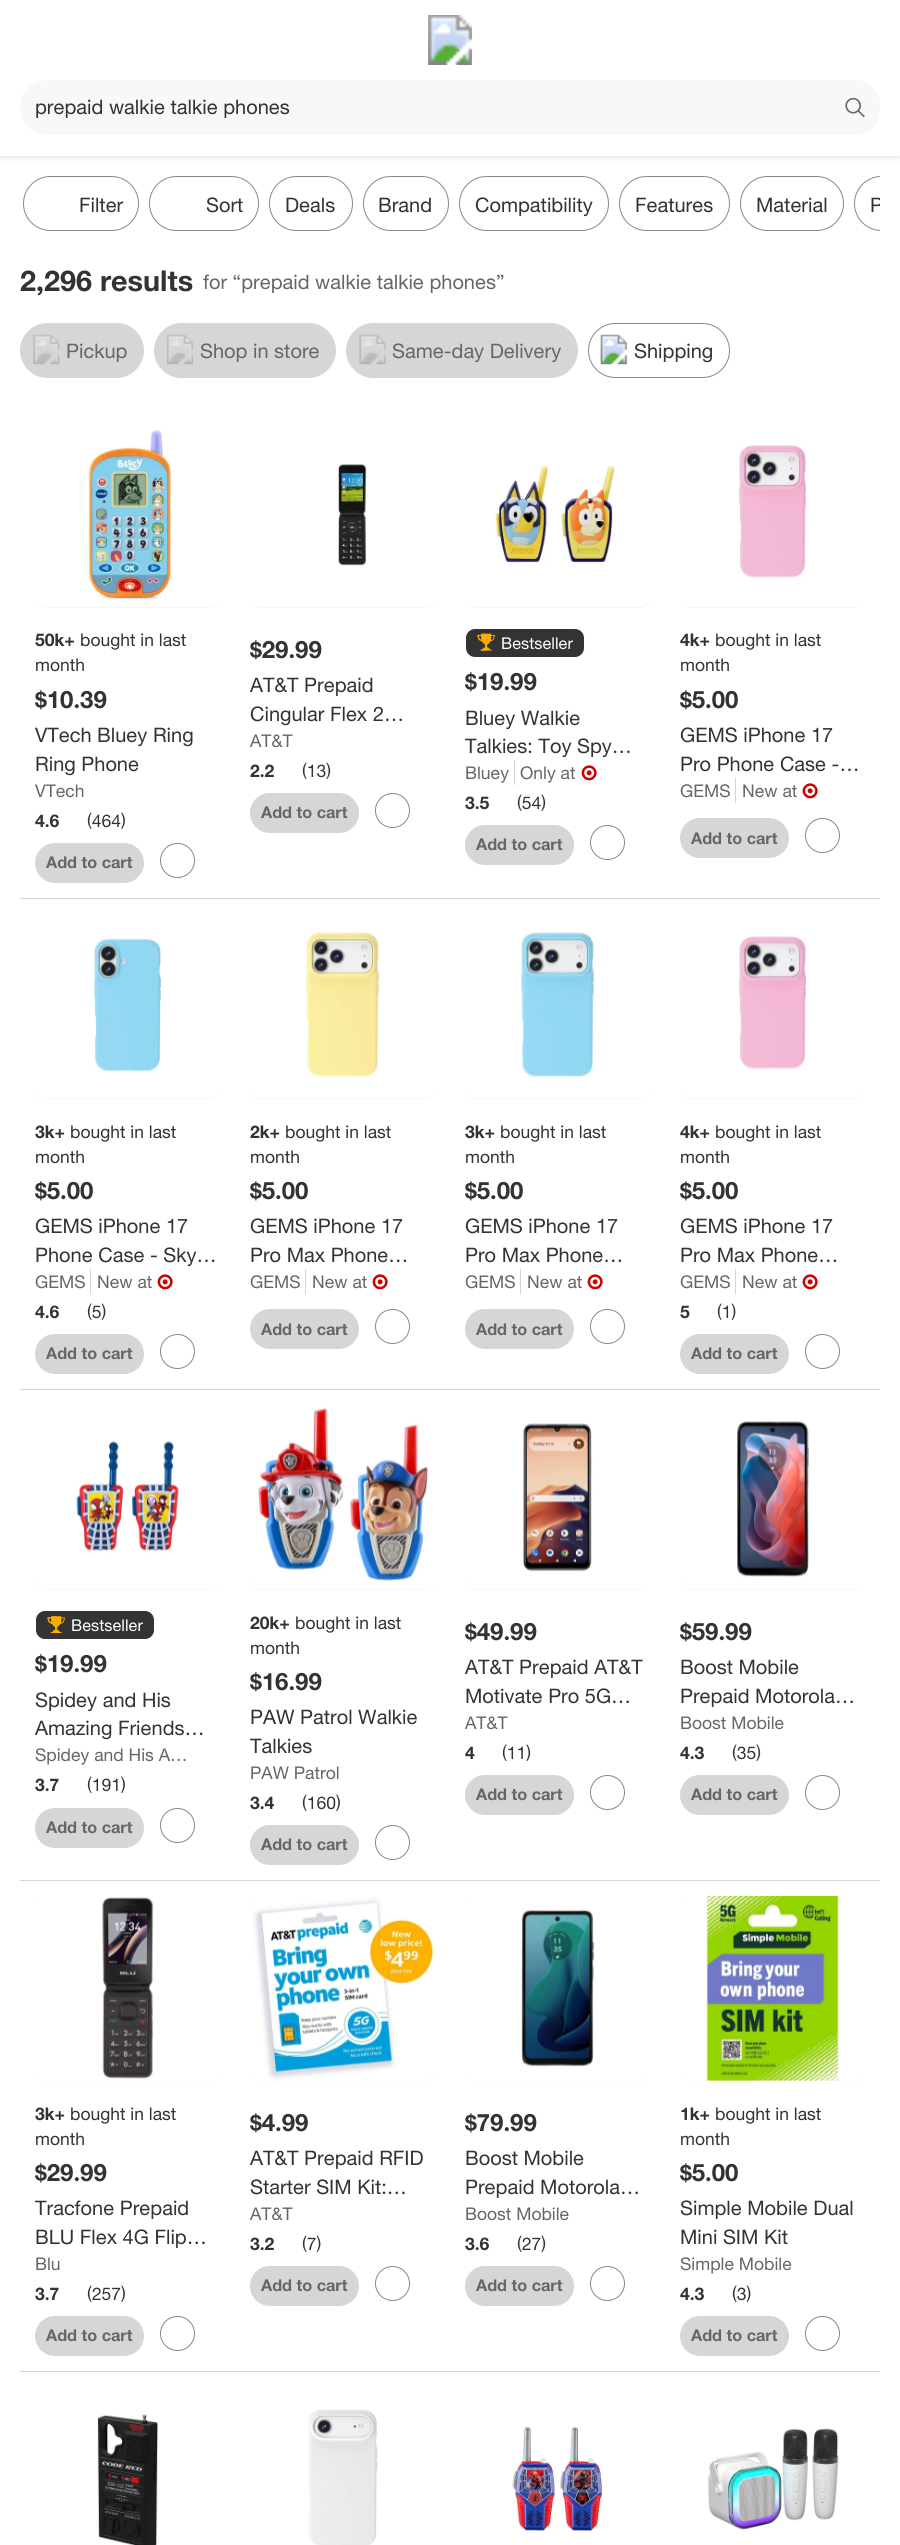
#include <cairo.h>
#include <math.h>
#include <stddef.h>


static void round_rect(cairo_t *cr, double x, double y, double w, double h, double r) {
    cairo_new_sub_path(cr);
    cairo_arc(cr, x + w - r, y + h - r, r, 0, M_PI / 2);
    cairo_arc(cr, x + r, y + h - r, r, M_PI / 2, M_PI);
    cairo_arc(cr, x + r, y + r, r, M_PI, 1.5 * M_PI);
    cairo_arc(cr, x + w - r, y + r, r, 1.5 * M_PI, 2 * M_PI);
    cairo_close_path(cr);
}

static void shadow(cairo_t *cr, double x, double y, double w, double h, double r, double blur, double alpha) {
    cairo_push_group_with_content(cr, CAIRO_CONTENT_ALPHA);
    cairo_set_operator(cr, CAIRO_OPERATOR_SOURCE);
    for (int i = 15; i >= -15 && fmin(w, h) + blur * i / 3 > 0; i -= 2) {
        double e = blur * i / 6;
        cairo_set_source_rgba(cr, 0, 0, 0, alpha * erfc((i - 1) / 8.5) / 2);
        round_rect(cr, x - e, y - e, w + 2 * e, h + 2 * e, fmax(0, fmin(r + e + blur * .6, fmin(w, h) / 2 + e)));
        cairo_fill(cr);
    }
    cairo_pattern_t *soft = cairo_pop_group(cr);
    cairo_mask(cr, soft);
    cairo_pattern_destroy(soft);
}

static void picture(cairo_t *cr, const char *path, double x, double y, double w, double h) {
    cairo_surface_t *image = cairo_image_surface_create_from_png(path);
    cairo_save(cr);
    cairo_set_source_surface(cr, image, x, y);
    cairo_rectangle(cr, x, y, w, h);
    cairo_fill(cr);
    cairo_restore(cr);
    cairo_surface_destroy(image);
}

int main(void) {
    cairo_surface_t *surface = cairo_image_surface_create(CAIRO_FORMAT_RGB24, 900, 2545);
    cairo_t *cr = cairo_create(surface);
    cairo_font_options_t *options = cairo_font_options_create();
    cairo_font_options_set_hint_metrics(options, CAIRO_HINT_METRICS_OFF);
    cairo_font_options_set_hint_style(options, CAIRO_HINT_STYLE_NONE);
    cairo_set_font_options(cr, options);
    cairo_set_miter_limit(cr, 4);
    cairo_set_source_rgb(cr, 1, 1, 1);
    cairo_paint(cr);
    cairo_set_source_rgb(cr, 0, 0, 0);
    shadow(cr, 0, 4, 900, 156, 0, 2.5, 0.04);
    shadow(cr, 0, 1, 900, 157, 0, 1, 0.04);
    cairo_set_source_rgb(cr, 1, 1, 1);
    cairo_rectangle(cr, 0, 0, 900, 156);
    cairo_fill(cr);
    picture(cr, "img1.png", 428, 15, 44, 50);
    cairo_set_source_rgb(cr, 0.969, 0.969, 0.969);
    round_rect(cr, 20, 80, 860, 55, 27.5);
    cairo_fill(cr);
    cairo_select_font_face(cr, "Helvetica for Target", CAIRO_FONT_SLANT_NORMAL, CAIRO_FONT_WEIGHT_NORMAL);
    cairo_set_font_size(cr, 20);
    cairo_set_source_rgb(cr, 0.2, 0.2, 0.2);
    cairo_move_to(cr, 35, 114);
    cairo_show_text(cr, "prepaid walkie talkie phones");
    cairo_set_source_rgb(cr, 0.969, 0.969, 0.969);
    round_rect(cr, 830, 80, 50, 55, 25);
    cairo_fill(cr);
    picture(cr, "img2.png", 845, 97, 20, 21);
    round_rect(cr, 23.5, 176.5, 115, 54, 27);
    cairo_set_source_rgb(cr, 0.533, 0.533, 0.533);
    cairo_set_line_width(cr, 1);
    cairo_stroke(cr);
    cairo_set_source_rgb(cr, 0.2, 0.2, 0.2);
    cairo_move_to(cr, 79, 212);
    cairo_show_text(cr, "Filter");
    round_rect(cr, 149.5, 176.5, 109, 54, 27);
    cairo_set_source_rgb(cr, 0.533, 0.533, 0.533);
    cairo_stroke(cr);
    cairo_set_source_rgb(cr, 0.2, 0.2, 0.2);
    cairo_move_to(cr, 206, 212);
    cairo_show_text(cr, "Sort");
    round_rect(cr, 269.5, 176.5, 83, 54, 27);
    cairo_set_source_rgb(cr, 0.533, 0.533, 0.533);
    cairo_stroke(cr);
    cairo_set_source_rgb(cr, 0.2, 0.2, 0.2);
    cairo_move_to(cr, 285, 212);
    cairo_show_text(cr, "Deals");
    round_rect(cr, 363.5, 176.5, 85, 54, 27);
    cairo_set_source_rgb(cr, 0.533, 0.533, 0.533);
    cairo_stroke(cr);
    cairo_set_source_rgb(cr, 0.2, 0.2, 0.2);
    cairo_move_to(cr, 378, 212);
    cairo_show_text(cr, "Brand");
    round_rect(cr, 459.5, 176.5, 149, 54, 27);
    cairo_set_source_rgb(cr, 0.533, 0.533, 0.533);
    cairo_stroke(cr);
    cairo_set_source_rgb(cr, 0.2, 0.2, 0.2);
    cairo_move_to(cr, 475, 212);
    cairo_show_text(cr, "Compatibility");
    round_rect(cr, 619.5, 176.5, 110, 54, 27);
    cairo_set_source_rgb(cr, 0.533, 0.533, 0.533);
    cairo_stroke(cr);
    cairo_set_source_rgb(cr, 0.2, 0.2, 0.2);
    cairo_move_to(cr, 635, 212);
    cairo_show_text(cr, "Features");
    round_rect(cr, 740.5, 176.5, 103, 54, 27);
    cairo_set_source_rgb(cr, 0.533, 0.533, 0.533);
    cairo_stroke(cr);
    cairo_set_source_rgb(cr, 0.2, 0.2, 0.2);
    cairo_move_to(cr, 756, 212);
    cairo_show_text(cr, "Material");
    cairo_save(cr);
    cairo_rectangle(cr, 20, 166, 860, 80);
    cairo_clip(cr);
    round_rect(cr, 854.5, 176.5, 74, 54, 27);
    cairo_set_source_rgb(cr, 0.533, 0.533, 0.533);
    cairo_stroke(cr);
    cairo_set_source_rgb(cr, 0.2, 0.2, 0.2);
    cairo_move_to(cr, 870, 212);
    cairo_show_text(cr, "P");
    cairo_restore(cr);
    cairo_select_font_face(cr, "Helvetica for Target", CAIRO_FONT_SLANT_NORMAL, CAIRO_FONT_WEIGHT_BOLD);
    cairo_set_font_size(cr, 28.75);
    cairo_move_to(cr, 20, 291);
    cairo_show_text(cr, "2,296 results");
    cairo_select_font_face(cr, "Helvetica for Target", CAIRO_FONT_SLANT_NORMAL, CAIRO_FONT_WEIGHT_NORMAL);
    cairo_set_font_size(cr, 20);
    cairo_set_source_rgb(cr, 0.4, 0.4, 0.4);
    cairo_move_to(cr, 203, 289);
    cairo_show_text(cr, "for “prepaid walkie talkie phones”");
    cairo_set_source_rgb(cr, 0.839, 0.839, 0.839);
    round_rect(cr, 20.5, 323.5, 123, 54, 27);
    cairo_fill_preserve(cr);
    cairo_stroke(cr);
    picture(cr, "img3.png", 33, 334, 27, 31);
    cairo_set_source_rgb(cr, 0.4, 0.4, 0.4);
    cairo_move_to(cr, 66, 358);
    cairo_show_text(cr, "Pickup");
    cairo_set_source_rgb(cr, 0.839, 0.839, 0.839);
    round_rect(cr, 154.5, 323.5, 181, 54, 27);
    cairo_fill_preserve(cr);
    cairo_stroke(cr);
    picture(cr, "img4.png", 166, 334, 28, 31);
    cairo_set_source_rgb(cr, 0.4, 0.4, 0.4);
    cairo_move_to(cr, 200, 358);
    cairo_show_text(cr, "Shop in store");
    cairo_set_source_rgb(cr, 0.839, 0.839, 0.839);
    round_rect(cr, 346.5, 323.5, 231, 54, 27);
    cairo_fill_preserve(cr);
    cairo_stroke(cr);
    picture(cr, "img5.png", 359, 334, 27, 31);
    cairo_set_source_rgb(cr, 0.4, 0.4, 0.4);
    cairo_move_to(cr, 392, 358);
    cairo_show_text(cr, "Same-day Delivery");
    round_rect(cr, 588.5, 323.5, 141, 54, 27);
    cairo_set_source_rgb(cr, 0.533, 0.533, 0.533);
    cairo_stroke(cr);
    picture(cr, "img6.png", 600, 334, 27, 31);
    cairo_set_source_rgb(cr, 0.2, 0.2, 0.2);
    cairo_move_to(cr, 634, 358);
    cairo_show_text(cr, "Shipping");
    cairo_set_source_rgb(cr, 0.839, 0.839, 0.839);
    cairo_rectangle(cr, 20, 898, 860, 1);
    cairo_fill(cr);
    cairo_set_source_rgb(cr, 0.969, 0.969, 0.969);
    round_rect(cr, 35, 423, 185, 185, 10);
    cairo_fill(cr);
    picture(cr, "img7.png", 35, 423, 185, 184);
    cairo_select_font_face(cr, "Helvetica for Target", CAIRO_FONT_SLANT_NORMAL, CAIRO_FONT_WEIGHT_BOLD);
    cairo_set_font_size(cr, 17.5);
    cairo_set_source_rgb(cr, 0.2, 0.2, 0.2);
    cairo_move_to(cr, 35, 646);
    cairo_show_text(cr, "50k+");
    cairo_select_font_face(cr, "Helvetica for Target", CAIRO_FONT_SLANT_NORMAL, CAIRO_FONT_WEIGHT_NORMAL);
    cairo_move_to(cr, 80, 646);
    cairo_show_text(cr, "bought in last");
    cairo_move_to(cr, 35, 671);
    cairo_show_text(cr, "month");
    cairo_select_font_face(cr, "Helvetica for Target", CAIRO_FONT_SLANT_NORMAL, CAIRO_FONT_WEIGHT_BOLD);
    cairo_set_font_size(cr, 24);
    cairo_move_to(cr, 35, 708);
    cairo_show_text(cr, "$10.39");
    cairo_select_font_face(cr, "Helvetica for Target", CAIRO_FONT_SLANT_NORMAL, CAIRO_FONT_WEIGHT_NORMAL);
    cairo_set_font_size(cr, 20);
    cairo_move_to(cr, 35, 742);
    cairo_show_text(cr, "VTech Bluey Ring");
    cairo_move_to(cr, 35, 771);
    cairo_show_text(cr, "Ring Phone");
    cairo_set_font_size(cr, 17.5);
    cairo_set_source_rgb(cr, 0.4, 0.4, 0.4);
    cairo_move_to(cr, 35, 797);
    cairo_show_text(cr, "VTech");
    cairo_select_font_face(cr, "Helvetica for Target", CAIRO_FONT_SLANT_NORMAL, CAIRO_FONT_WEIGHT_BOLD);
    cairo_set_source_rgb(cr, 0.2, 0.2, 0.2);
    cairo_move_to(cr, 35, 827);
    cairo_show_text(cr, "4.6");
    cairo_select_font_face(cr, "Helvetica for Target", CAIRO_FONT_SLANT_NORMAL, CAIRO_FONT_WEIGHT_NORMAL);
    cairo_move_to(cr, 87, 827);
    cairo_show_text(cr, "(464)");
    cairo_set_source_rgb(cr, 0.839, 0.839, 0.839);
    round_rect(cr, 35.5, 843.5, 108, 39, 19.5);
    cairo_fill_preserve(cr);
    cairo_stroke(cr);
    cairo_select_font_face(cr, "Helvetica for Target", CAIRO_FONT_SLANT_NORMAL, CAIRO_FONT_WEIGHT_BOLD);
    cairo_set_font_size(cr, 16.25);
    cairo_set_source_rgb(cr, 0.4, 0.4, 0.4);
    cairo_move_to(cr, 46, 868);
    cairo_show_text(cr, "Add to cart");
    cairo_new_path(cr);
    cairo_arc(cr, 177.5, 860.5, 17, 0, 2 * M_PI);
    cairo_set_source_rgb(cr, 0.533, 0.533, 0.533);
    cairo_stroke(cr);
    cairo_set_source_rgb(cr, 0.969, 0.969, 0.969);
    round_rect(cr, 250, 423, 185, 185, 10);
    cairo_fill(cr);
    picture(cr, "img8.png", 250, 423, 185, 184);
    cairo_set_font_size(cr, 24);
    cairo_set_source_rgb(cr, 0.2, 0.2, 0.2);
    cairo_move_to(cr, 250, 658);
    cairo_show_text(cr, "$29.99");
    cairo_select_font_face(cr, "Helvetica for Target", CAIRO_FONT_SLANT_NORMAL, CAIRO_FONT_WEIGHT_NORMAL);
    cairo_set_font_size(cr, 20);
    cairo_move_to(cr, 250, 692);
    cairo_show_text(cr, "AT&T Prepaid");
    cairo_move_to(cr, 250, 721);
    cairo_show_text(cr, "Cingular Flex 2…");
    cairo_set_font_size(cr, 17.5);
    cairo_set_source_rgb(cr, 0.4, 0.4, 0.4);
    cairo_move_to(cr, 250, 747);
    cairo_show_text(cr, "AT&T");
    cairo_select_font_face(cr, "Helvetica for Target", CAIRO_FONT_SLANT_NORMAL, CAIRO_FONT_WEIGHT_BOLD);
    cairo_set_source_rgb(cr, 0.2, 0.2, 0.2);
    cairo_move_to(cr, 250, 777);
    cairo_show_text(cr, "2.2");
    cairo_select_font_face(cr, "Helvetica for Target", CAIRO_FONT_SLANT_NORMAL, CAIRO_FONT_WEIGHT_NORMAL);
    cairo_move_to(cr, 302, 777);
    cairo_show_text(cr, "(13)");
    cairo_set_source_rgb(cr, 0.839, 0.839, 0.839);
    round_rect(cr, 250.5, 793.5, 108, 39, 19.5);
    cairo_fill_preserve(cr);
    cairo_stroke(cr);
    cairo_select_font_face(cr, "Helvetica for Target", CAIRO_FONT_SLANT_NORMAL, CAIRO_FONT_WEIGHT_BOLD);
    cairo_set_font_size(cr, 16.25);
    cairo_set_source_rgb(cr, 0.4, 0.4, 0.4);
    cairo_move_to(cr, 261, 818);
    cairo_show_text(cr, "Add to cart");
    cairo_new_path(cr);
    cairo_arc(cr, 392.5, 810.5, 17, 0, 2 * M_PI);
    cairo_set_source_rgb(cr, 0.533, 0.533, 0.533);
    cairo_stroke(cr);
    cairo_set_source_rgb(cr, 0.969, 0.969, 0.969);
    round_rect(cr, 465, 423, 185, 185, 10);
    cairo_fill(cr);
    picture(cr, "img9.png", 465, 423, 185, 184);
    cairo_set_source_rgb(cr, 0.2, 0.2, 0.2);
    round_rect(cr, 465.5, 628.5, 119, 29, 9.5);
    cairo_fill_preserve(cr);
    cairo_set_source_rgb(cr, 1, 1, 1);
    cairo_stroke(cr);
    picture(cr, "img10.png", 477, 633, 18, 18);
    cairo_select_font_face(cr, "Helvetica for Target", CAIRO_FONT_SLANT_NORMAL, CAIRO_FONT_WEIGHT_NORMAL);
    cairo_move_to(cr, 501, 649);
    cairo_show_text(cr, "Bestseller");
    cairo_select_font_face(cr, "Helvetica for Target", CAIRO_FONT_SLANT_NORMAL, CAIRO_FONT_WEIGHT_BOLD);
    cairo_set_font_size(cr, 24);
    cairo_set_source_rgb(cr, 0.2, 0.2, 0.2);
    cairo_move_to(cr, 465, 690);
    cairo_show_text(cr, "$19.99");
    cairo_select_font_face(cr, "Helvetica for Target", CAIRO_FONT_SLANT_NORMAL, CAIRO_FONT_WEIGHT_NORMAL);
    cairo_set_font_size(cr, 20);
    cairo_move_to(cr, 465, 725);
    cairo_show_text(cr, "Bluey Walkie");
    cairo_move_to(cr, 465, 753);
    cairo_show_text(cr, "Talkies: Toy Spy…");
    cairo_set_source_rgb(cr, 0.839, 0.839, 0.839);
    cairo_rectangle(cr, 514, 760, 1, 25);
    cairo_fill(cr);
    cairo_set_font_size(cr, 17.5);
    cairo_set_source_rgb(cr, 0.4, 0.4, 0.4);
    cairo_move_to(cr, 465, 779);
    cairo_show_text(cr, "Bluey");
    cairo_move_to(cr, 520, 779);
    cairo_show_text(cr, "Only at");
    cairo_set_font_size(cr, 20);
    cairo_set_source_rgb(cr, 0.8, 0, 0);
    cairo_move_to(cr, 581, 780);
    cairo_show_text(cr, "¬");
    cairo_select_font_face(cr, "Helvetica for Target", CAIRO_FONT_SLANT_NORMAL, CAIRO_FONT_WEIGHT_BOLD);
    cairo_set_font_size(cr, 17.5);
    cairo_set_source_rgb(cr, 0.2, 0.2, 0.2);
    cairo_move_to(cr, 465, 809);
    cairo_show_text(cr, "3.5");
    cairo_select_font_face(cr, "Helvetica for Target", CAIRO_FONT_SLANT_NORMAL, CAIRO_FONT_WEIGHT_NORMAL);
    cairo_move_to(cr, 517, 809);
    cairo_show_text(cr, "(54)");
    cairo_set_source_rgb(cr, 0.839, 0.839, 0.839);
    round_rect(cr, 465.5, 825.5, 108, 39, 19.5);
    cairo_fill_preserve(cr);
    cairo_stroke(cr);
    cairo_select_font_face(cr, "Helvetica for Target", CAIRO_FONT_SLANT_NORMAL, CAIRO_FONT_WEIGHT_BOLD);
    cairo_set_font_size(cr, 16.25);
    cairo_set_source_rgb(cr, 0.4, 0.4, 0.4);
    cairo_move_to(cr, 476, 850);
    cairo_show_text(cr, "Add to cart");
    cairo_new_path(cr);
    cairo_arc(cr, 607.5, 842.5, 17, 0, 2 * M_PI);
    cairo_set_source_rgb(cr, 0.533, 0.533, 0.533);
    cairo_stroke(cr);
    cairo_set_source_rgb(cr, 0.969, 0.969, 0.969);
    round_rect(cr, 680, 423, 185, 185, 10);
    cairo_fill(cr);
    picture(cr, "img11.png", 680, 423, 185, 184);
    cairo_set_font_size(cr, 17.5);
    cairo_set_source_rgb(cr, 0.2, 0.2, 0.2);
    cairo_move_to(cr, 680, 646);
    cairo_show_text(cr, "4k+");
    cairo_select_font_face(cr, "Helvetica for Target", CAIRO_FONT_SLANT_NORMAL, CAIRO_FONT_WEIGHT_NORMAL);
    cairo_move_to(cr, 715, 646);
    cairo_show_text(cr, "bought in last");
    cairo_move_to(cr, 680, 671);
    cairo_show_text(cr, "month");
    cairo_select_font_face(cr, "Helvetica for Target", CAIRO_FONT_SLANT_NORMAL, CAIRO_FONT_WEIGHT_BOLD);
    cairo_set_font_size(cr, 24);
    cairo_move_to(cr, 680, 708);
    cairo_show_text(cr, "$5.00");
    cairo_select_font_face(cr, "Helvetica for Target", CAIRO_FONT_SLANT_NORMAL, CAIRO_FONT_WEIGHT_NORMAL);
    cairo_set_font_size(cr, 20);
    cairo_move_to(cr, 680, 742);
    cairo_show_text(cr, "GEMS iPhone 17");
    cairo_move_to(cr, 680, 771);
    cairo_show_text(cr, "Pro Phone Case -…");
    cairo_set_source_rgb(cr, 0.839, 0.839, 0.839);
    cairo_rectangle(cr, 735, 778, 1, 25);
    cairo_fill(cr);
    cairo_set_font_size(cr, 17.5);
    cairo_set_source_rgb(cr, 0.4, 0.4, 0.4);
    cairo_move_to(cr, 680, 797);
    cairo_show_text(cr, "GEMS");
    cairo_move_to(cr, 742, 797);
    cairo_show_text(cr, "New at");
    cairo_set_font_size(cr, 20);
    cairo_set_source_rgb(cr, 0.8, 0, 0);
    cairo_move_to(cr, 802, 798);
    cairo_show_text(cr, "¬");
    cairo_set_source_rgb(cr, 0.839, 0.839, 0.839);
    round_rect(cr, 680.5, 818.5, 108, 39, 19.5);
    cairo_fill_preserve(cr);
    cairo_stroke(cr);
    cairo_select_font_face(cr, "Helvetica for Target", CAIRO_FONT_SLANT_NORMAL, CAIRO_FONT_WEIGHT_BOLD);
    cairo_set_font_size(cr, 16.25);
    cairo_set_source_rgb(cr, 0.4, 0.4, 0.4);
    cairo_move_to(cr, 691, 844);
    cairo_show_text(cr, "Add to cart");
    cairo_new_path(cr);
    cairo_arc(cr, 822.5, 835.5, 17, 0, 2 * M_PI);
    cairo_set_source_rgb(cr, 0.533, 0.533, 0.533);
    cairo_stroke(cr);
    cairo_set_source_rgb(cr, 0.839, 0.839, 0.839);
    cairo_rectangle(cr, 20, 1389, 860, 1);
    cairo_fill(cr);
    cairo_set_source_rgb(cr, 0.969, 0.969, 0.969);
    round_rect(cr, 35, 914, 185, 185, 10);
    cairo_fill(cr);
    picture(cr, "img12.png", 35, 914, 185, 184);
    cairo_set_font_size(cr, 17.5);
    cairo_set_source_rgb(cr, 0.2, 0.2, 0.2);
    cairo_move_to(cr, 35, 1138);
    cairo_show_text(cr, "3k+");
    cairo_select_font_face(cr, "Helvetica for Target", CAIRO_FONT_SLANT_NORMAL, CAIRO_FONT_WEIGHT_NORMAL);
    cairo_move_to(cr, 70, 1138);
    cairo_show_text(cr, "bought in last");
    cairo_move_to(cr, 35, 1163);
    cairo_show_text(cr, "month");
    cairo_select_font_face(cr, "Helvetica for Target", CAIRO_FONT_SLANT_NORMAL, CAIRO_FONT_WEIGHT_BOLD);
    cairo_set_font_size(cr, 24);
    cairo_move_to(cr, 35, 1199);
    cairo_show_text(cr, "$5.00");
    cairo_select_font_face(cr, "Helvetica for Target", CAIRO_FONT_SLANT_NORMAL, CAIRO_FONT_WEIGHT_NORMAL);
    cairo_set_font_size(cr, 20);
    cairo_move_to(cr, 35, 1233);
    cairo_show_text(cr, "GEMS iPhone 17");
    cairo_move_to(cr, 35, 1262);
    cairo_show_text(cr, "Phone Case - Sky…");
    cairo_set_source_rgb(cr, 0.839, 0.839, 0.839);
    cairo_rectangle(cr, 90, 1269, 1, 25);
    cairo_fill(cr);
    cairo_set_font_size(cr, 17.5);
    cairo_set_source_rgb(cr, 0.4, 0.4, 0.4);
    cairo_move_to(cr, 35, 1288);
    cairo_show_text(cr, "GEMS");
    cairo_move_to(cr, 97, 1288);
    cairo_show_text(cr, "New at");
    cairo_set_font_size(cr, 20);
    cairo_set_source_rgb(cr, 0.8, 0, 0);
    cairo_move_to(cr, 157, 1289);
    cairo_show_text(cr, "¬");
    cairo_select_font_face(cr, "Helvetica for Target", CAIRO_FONT_SLANT_NORMAL, CAIRO_FONT_WEIGHT_BOLD);
    cairo_set_font_size(cr, 17.5);
    cairo_set_source_rgb(cr, 0.2, 0.2, 0.2);
    cairo_move_to(cr, 35, 1318);
    cairo_show_text(cr, "4.6");
    cairo_select_font_face(cr, "Helvetica for Target", CAIRO_FONT_SLANT_NORMAL, CAIRO_FONT_WEIGHT_NORMAL);
    cairo_move_to(cr, 87, 1318);
    cairo_show_text(cr, "(5)");
    cairo_set_source_rgb(cr, 0.839, 0.839, 0.839);
    round_rect(cr, 35.5, 1334.5, 108, 39, 19.5);
    cairo_fill_preserve(cr);
    cairo_stroke(cr);
    cairo_select_font_face(cr, "Helvetica for Target", CAIRO_FONT_SLANT_NORMAL, CAIRO_FONT_WEIGHT_BOLD);
    cairo_set_font_size(cr, 16.25);
    cairo_set_source_rgb(cr, 0.4, 0.4, 0.4);
    cairo_move_to(cr, 46, 1359);
    cairo_show_text(cr, "Add to cart");
    cairo_new_path(cr);
    cairo_arc(cr, 177.5, 1351.5, 17, 0, 2 * M_PI);
    cairo_set_source_rgb(cr, 0.533, 0.533, 0.533);
    cairo_stroke(cr);
    cairo_set_source_rgb(cr, 0.969, 0.969, 0.969);
    round_rect(cr, 250, 914, 185, 185, 10);
    cairo_fill(cr);
    picture(cr, "img13.png", 250, 914, 185, 184);
    cairo_set_font_size(cr, 17.5);
    cairo_set_source_rgb(cr, 0.2, 0.2, 0.2);
    cairo_move_to(cr, 250, 1138);
    cairo_show_text(cr, "2k+");
    cairo_select_font_face(cr, "Helvetica for Target", CAIRO_FONT_SLANT_NORMAL, CAIRO_FONT_WEIGHT_NORMAL);
    cairo_move_to(cr, 285, 1138);
    cairo_show_text(cr, "bought in last");
    cairo_move_to(cr, 250, 1163);
    cairo_show_text(cr, "month");
    cairo_select_font_face(cr, "Helvetica for Target", CAIRO_FONT_SLANT_NORMAL, CAIRO_FONT_WEIGHT_BOLD);
    cairo_set_font_size(cr, 24);
    cairo_move_to(cr, 250, 1199);
    cairo_show_text(cr, "$5.00");
    cairo_select_font_face(cr, "Helvetica for Target", CAIRO_FONT_SLANT_NORMAL, CAIRO_FONT_WEIGHT_NORMAL);
    cairo_set_font_size(cr, 20);
    cairo_move_to(cr, 250, 1233);
    cairo_show_text(cr, "GEMS iPhone 17");
    cairo_move_to(cr, 250, 1262);
    cairo_show_text(cr, "Pro Max Phone…");
    cairo_set_source_rgb(cr, 0.839, 0.839, 0.839);
    cairo_rectangle(cr, 305, 1269, 1, 25);
    cairo_fill(cr);
    cairo_set_font_size(cr, 17.5);
    cairo_set_source_rgb(cr, 0.4, 0.4, 0.4);
    cairo_move_to(cr, 250, 1288);
    cairo_show_text(cr, "GEMS");
    cairo_move_to(cr, 312, 1288);
    cairo_show_text(cr, "New at");
    cairo_set_font_size(cr, 20);
    cairo_set_source_rgb(cr, 0.8, 0, 0);
    cairo_move_to(cr, 372, 1289);
    cairo_show_text(cr, "¬");
    cairo_set_source_rgb(cr, 0.839, 0.839, 0.839);
    round_rect(cr, 250.5, 1309.5, 108, 39, 19.5);
    cairo_fill_preserve(cr);
    cairo_stroke(cr);
    cairo_select_font_face(cr, "Helvetica for Target", CAIRO_FONT_SLANT_NORMAL, CAIRO_FONT_WEIGHT_BOLD);
    cairo_set_font_size(cr, 16.25);
    cairo_set_source_rgb(cr, 0.4, 0.4, 0.4);
    cairo_move_to(cr, 261, 1335);
    cairo_show_text(cr, "Add to cart");
    cairo_new_path(cr);
    cairo_arc(cr, 392.5, 1326.5, 17, 0, 2 * M_PI);
    cairo_set_source_rgb(cr, 0.533, 0.533, 0.533);
    cairo_stroke(cr);
    cairo_set_source_rgb(cr, 0.969, 0.969, 0.969);
    round_rect(cr, 465, 914, 185, 185, 10);
    cairo_fill(cr);
    picture(cr, "img14.png", 465, 914, 185, 184);
    cairo_set_font_size(cr, 17.5);
    cairo_set_source_rgb(cr, 0.2, 0.2, 0.2);
    cairo_move_to(cr, 465, 1138);
    cairo_show_text(cr, "3k+");
    cairo_select_font_face(cr, "Helvetica for Target", CAIRO_FONT_SLANT_NORMAL, CAIRO_FONT_WEIGHT_NORMAL);
    cairo_move_to(cr, 500, 1138);
    cairo_show_text(cr, "bought in last");
    cairo_move_to(cr, 465, 1163);
    cairo_show_text(cr, "month");
    cairo_select_font_face(cr, "Helvetica for Target", CAIRO_FONT_SLANT_NORMAL, CAIRO_FONT_WEIGHT_BOLD);
    cairo_set_font_size(cr, 24);
    cairo_move_to(cr, 465, 1199);
    cairo_show_text(cr, "$5.00");
    cairo_select_font_face(cr, "Helvetica for Target", CAIRO_FONT_SLANT_NORMAL, CAIRO_FONT_WEIGHT_NORMAL);
    cairo_set_font_size(cr, 20);
    cairo_move_to(cr, 465, 1233);
    cairo_show_text(cr, "GEMS iPhone 17");
    cairo_move_to(cr, 465, 1262);
    cairo_show_text(cr, "Pro Max Phone…");
    cairo_set_source_rgb(cr, 0.839, 0.839, 0.839);
    cairo_rectangle(cr, 520, 1269, 1, 25);
    cairo_fill(cr);
    cairo_set_font_size(cr, 17.5);
    cairo_set_source_rgb(cr, 0.4, 0.4, 0.4);
    cairo_move_to(cr, 465, 1288);
    cairo_show_text(cr, "GEMS");
    cairo_move_to(cr, 527, 1288);
    cairo_show_text(cr, "New at");
    cairo_set_font_size(cr, 20);
    cairo_set_source_rgb(cr, 0.8, 0, 0);
    cairo_move_to(cr, 587, 1289);
    cairo_show_text(cr, "¬");
    cairo_set_source_rgb(cr, 0.839, 0.839, 0.839);
    round_rect(cr, 465.5, 1309.5, 108, 39, 19.5);
    cairo_fill_preserve(cr);
    cairo_stroke(cr);
    cairo_select_font_face(cr, "Helvetica for Target", CAIRO_FONT_SLANT_NORMAL, CAIRO_FONT_WEIGHT_BOLD);
    cairo_set_font_size(cr, 16.25);
    cairo_set_source_rgb(cr, 0.4, 0.4, 0.4);
    cairo_move_to(cr, 476, 1335);
    cairo_show_text(cr, "Add to cart");
    cairo_new_path(cr);
    cairo_arc(cr, 607.5, 1326.5, 17, 0, 2 * M_PI);
    cairo_set_source_rgb(cr, 0.533, 0.533, 0.533);
    cairo_stroke(cr);
    cairo_set_source_rgb(cr, 0.969, 0.969, 0.969);
    round_rect(cr, 680, 914, 185, 185, 10);
    cairo_fill(cr);
    picture(cr, "img15.png", 680, 914, 185, 184);
    cairo_set_font_size(cr, 17.5);
    cairo_set_source_rgb(cr, 0.2, 0.2, 0.2);
    cairo_move_to(cr, 680, 1138);
    cairo_show_text(cr, "4k+");
    cairo_select_font_face(cr, "Helvetica for Target", CAIRO_FONT_SLANT_NORMAL, CAIRO_FONT_WEIGHT_NORMAL);
    cairo_move_to(cr, 715, 1138);
    cairo_show_text(cr, "bought in last");
    cairo_move_to(cr, 680, 1163);
    cairo_show_text(cr, "month");
    cairo_select_font_face(cr, "Helvetica for Target", CAIRO_FONT_SLANT_NORMAL, CAIRO_FONT_WEIGHT_BOLD);
    cairo_set_font_size(cr, 24);
    cairo_move_to(cr, 680, 1199);
    cairo_show_text(cr, "$5.00");
    cairo_select_font_face(cr, "Helvetica for Target", CAIRO_FONT_SLANT_NORMAL, CAIRO_FONT_WEIGHT_NORMAL);
    cairo_set_font_size(cr, 20);
    cairo_move_to(cr, 680, 1233);
    cairo_show_text(cr, "GEMS iPhone 17");
    cairo_move_to(cr, 680, 1262);
    cairo_show_text(cr, "Pro Max Phone…");
    cairo_set_source_rgb(cr, 0.839, 0.839, 0.839);
    cairo_rectangle(cr, 735, 1269, 1, 25);
    cairo_fill(cr);
    cairo_set_font_size(cr, 17.5);
    cairo_set_source_rgb(cr, 0.4, 0.4, 0.4);
    cairo_move_to(cr, 680, 1288);
    cairo_show_text(cr, "GEMS");
    cairo_move_to(cr, 742, 1288);
    cairo_show_text(cr, "New at");
    cairo_set_font_size(cr, 20);
    cairo_set_source_rgb(cr, 0.8, 0, 0);
    cairo_move_to(cr, 802, 1289);
    cairo_show_text(cr, "¬");
    cairo_select_font_face(cr, "Helvetica for Target", CAIRO_FONT_SLANT_NORMAL, CAIRO_FONT_WEIGHT_BOLD);
    cairo_set_font_size(cr, 17.5);
    cairo_set_source_rgb(cr, 0.2, 0.2, 0.2);
    cairo_move_to(cr, 680, 1318);
    cairo_show_text(cr, "5");
    cairo_select_font_face(cr, "Helvetica for Target", CAIRO_FONT_SLANT_NORMAL, CAIRO_FONT_WEIGHT_NORMAL);
    cairo_move_to(cr, 717, 1318);
    cairo_show_text(cr, "(1)");
    cairo_set_source_rgb(cr, 0.839, 0.839, 0.839);
    round_rect(cr, 680.5, 1334.5, 108, 39, 19.5);
    cairo_fill_preserve(cr);
    cairo_stroke(cr);
    cairo_select_font_face(cr, "Helvetica for Target", CAIRO_FONT_SLANT_NORMAL, CAIRO_FONT_WEIGHT_BOLD);
    cairo_set_font_size(cr, 16.25);
    cairo_set_source_rgb(cr, 0.4, 0.4, 0.4);
    cairo_move_to(cr, 691, 1359);
    cairo_show_text(cr, "Add to cart");
    cairo_new_path(cr);
    cairo_arc(cr, 822.5, 1351.5, 17, 0, 2 * M_PI);
    cairo_set_source_rgb(cr, 0.533, 0.533, 0.533);
    cairo_stroke(cr);
    cairo_set_source_rgb(cr, 0.839, 0.839, 0.839);
    cairo_rectangle(cr, 20, 1880, 860, 1);
    cairo_fill(cr);
    cairo_set_source_rgb(cr, 0.969, 0.969, 0.969);
    round_rect(cr, 35, 1405, 185, 185, 10);
    cairo_fill(cr);
    picture(cr, "img16.png", 35, 1405, 185, 184);
    cairo_set_source_rgb(cr, 0.2, 0.2, 0.2);
    round_rect(cr, 35.5, 1610.5, 119, 29, 9.5);
    cairo_fill_preserve(cr);
    cairo_set_source_rgb(cr, 1, 1, 1);
    cairo_stroke(cr);
    picture(cr, "img17.png", 47, 1616, 18, 17);
    cairo_select_font_face(cr, "Helvetica for Target", CAIRO_FONT_SLANT_NORMAL, CAIRO_FONT_WEIGHT_NORMAL);
    cairo_move_to(cr, 71, 1631);
    cairo_show_text(cr, "Bestseller");
    cairo_select_font_face(cr, "Helvetica for Target", CAIRO_FONT_SLANT_NORMAL, CAIRO_FONT_WEIGHT_BOLD);
    cairo_set_font_size(cr, 24);
    cairo_set_source_rgb(cr, 0.2, 0.2, 0.2);
    cairo_move_to(cr, 35, 1672);
    cairo_show_text(cr, "$19.99");
    cairo_select_font_face(cr, "Helvetica for Target", CAIRO_FONT_SLANT_NORMAL, CAIRO_FONT_WEIGHT_NORMAL);
    cairo_set_font_size(cr, 20);
    cairo_move_to(cr, 35, 1707);
    cairo_show_text(cr, "Spidey and His");
    cairo_move_to(cr, 35, 1735);
    cairo_show_text(cr, "Amazing Friends…");
    cairo_set_font_size(cr, 17.5);
    cairo_set_source_rgb(cr, 0.4, 0.4, 0.4);
    cairo_move_to(cr, 35, 1761);
    cairo_show_text(cr, "Spidey and His A…");
    cairo_select_font_face(cr, "Helvetica for Target", CAIRO_FONT_SLANT_NORMAL, CAIRO_FONT_WEIGHT_BOLD);
    cairo_set_source_rgb(cr, 0.2, 0.2, 0.2);
    cairo_move_to(cr, 35, 1791);
    cairo_show_text(cr, "3.7");
    cairo_select_font_face(cr, "Helvetica for Target", CAIRO_FONT_SLANT_NORMAL, CAIRO_FONT_WEIGHT_NORMAL);
    cairo_move_to(cr, 87, 1791);
    cairo_show_text(cr, "(191)");
    cairo_set_source_rgb(cr, 0.839, 0.839, 0.839);
    round_rect(cr, 35.5, 1808.5, 108, 39, 19.5);
    cairo_fill_preserve(cr);
    cairo_stroke(cr);
    cairo_select_font_face(cr, "Helvetica for Target", CAIRO_FONT_SLANT_NORMAL, CAIRO_FONT_WEIGHT_BOLD);
    cairo_set_font_size(cr, 16.25);
    cairo_set_source_rgb(cr, 0.4, 0.4, 0.4);
    cairo_move_to(cr, 46, 1833);
    cairo_show_text(cr, "Add to cart");
    cairo_new_path(cr);
    cairo_arc(cr, 177.5, 1825.5, 17, 0, 2 * M_PI);
    cairo_set_source_rgb(cr, 0.533, 0.533, 0.533);
    cairo_stroke(cr);
    cairo_set_source_rgb(cr, 0.969, 0.969, 0.969);
    round_rect(cr, 250, 1405, 185, 185, 10);
    cairo_fill(cr);
    picture(cr, "img18.png", 250, 1405, 185, 184);
    cairo_set_font_size(cr, 17.5);
    cairo_set_source_rgb(cr, 0.2, 0.2, 0.2);
    cairo_move_to(cr, 250, 1629);
    cairo_show_text(cr, "20k+");
    cairo_select_font_face(cr, "Helvetica for Target", CAIRO_FONT_SLANT_NORMAL, CAIRO_FONT_WEIGHT_NORMAL);
    cairo_move_to(cr, 295, 1629);
    cairo_show_text(cr, "bought in last");
    cairo_move_to(cr, 250, 1654);
    cairo_show_text(cr, "month");
    cairo_select_font_face(cr, "Helvetica for Target", CAIRO_FONT_SLANT_NORMAL, CAIRO_FONT_WEIGHT_BOLD);
    cairo_set_font_size(cr, 24);
    cairo_move_to(cr, 250, 1690);
    cairo_show_text(cr, "$16.99");
    cairo_select_font_face(cr, "Helvetica for Target", CAIRO_FONT_SLANT_NORMAL, CAIRO_FONT_WEIGHT_NORMAL);
    cairo_set_font_size(cr, 20);
    cairo_move_to(cr, 250, 1724);
    cairo_show_text(cr, "PAW Patrol Walkie");
    cairo_move_to(cr, 250, 1753);
    cairo_show_text(cr, "Talkies");
    cairo_set_font_size(cr, 17.5);
    cairo_set_source_rgb(cr, 0.4, 0.4, 0.4);
    cairo_move_to(cr, 250, 1779);
    cairo_show_text(cr, "PAW Patrol");
    cairo_select_font_face(cr, "Helvetica for Target", CAIRO_FONT_SLANT_NORMAL, CAIRO_FONT_WEIGHT_BOLD);
    cairo_set_source_rgb(cr, 0.2, 0.2, 0.2);
    cairo_move_to(cr, 250, 1809);
    cairo_show_text(cr, "3.4");
    cairo_select_font_face(cr, "Helvetica for Target", CAIRO_FONT_SLANT_NORMAL, CAIRO_FONT_WEIGHT_NORMAL);
    cairo_move_to(cr, 302, 1809);
    cairo_show_text(cr, "(160)");
    cairo_set_source_rgb(cr, 0.839, 0.839, 0.839);
    round_rect(cr, 250.5, 1825.5, 108, 39, 19.5);
    cairo_fill_preserve(cr);
    cairo_stroke(cr);
    cairo_select_font_face(cr, "Helvetica for Target", CAIRO_FONT_SLANT_NORMAL, CAIRO_FONT_WEIGHT_BOLD);
    cairo_set_font_size(cr, 16.25);
    cairo_set_source_rgb(cr, 0.4, 0.4, 0.4);
    cairo_move_to(cr, 261, 1850);
    cairo_show_text(cr, "Add to cart");
    cairo_new_path(cr);
    cairo_arc(cr, 392.5, 1842.5, 17, 0, 2 * M_PI);
    cairo_set_source_rgb(cr, 0.533, 0.533, 0.533);
    cairo_stroke(cr);
    cairo_set_source_rgb(cr, 0.969, 0.969, 0.969);
    round_rect(cr, 465, 1405, 185, 185, 10);
    cairo_fill(cr);
    picture(cr, "img19.png", 465, 1405, 185, 184);
    cairo_set_font_size(cr, 24);
    cairo_set_source_rgb(cr, 0.2, 0.2, 0.2);
    cairo_move_to(cr, 465, 1640);
    cairo_show_text(cr, "$49.99");
    cairo_select_font_face(cr, "Helvetica for Target", CAIRO_FONT_SLANT_NORMAL, CAIRO_FONT_WEIGHT_NORMAL);
    cairo_set_font_size(cr, 20);
    cairo_move_to(cr, 465, 1674);
    cairo_show_text(cr, "AT&T Prepaid AT&T");
    cairo_move_to(cr, 465, 1703);
    cairo_show_text(cr, "Motivate Pro 5G…");
    cairo_set_font_size(cr, 17.5);
    cairo_set_source_rgb(cr, 0.4, 0.4, 0.4);
    cairo_move_to(cr, 465, 1729);
    cairo_show_text(cr, "AT&T");
    cairo_select_font_face(cr, "Helvetica for Target", CAIRO_FONT_SLANT_NORMAL, CAIRO_FONT_WEIGHT_BOLD);
    cairo_set_source_rgb(cr, 0.2, 0.2, 0.2);
    cairo_move_to(cr, 465, 1759);
    cairo_show_text(cr, "4");
    cairo_select_font_face(cr, "Helvetica for Target", CAIRO_FONT_SLANT_NORMAL, CAIRO_FONT_WEIGHT_NORMAL);
    cairo_move_to(cr, 502, 1759);
    cairo_show_text(cr, "(11)");
    cairo_set_source_rgb(cr, 0.839, 0.839, 0.839);
    round_rect(cr, 465.5, 1775.5, 108, 39, 19.5);
    cairo_fill_preserve(cr);
    cairo_stroke(cr);
    cairo_select_font_face(cr, "Helvetica for Target", CAIRO_FONT_SLANT_NORMAL, CAIRO_FONT_WEIGHT_BOLD);
    cairo_set_font_size(cr, 16.25);
    cairo_set_source_rgb(cr, 0.4, 0.4, 0.4);
    cairo_move_to(cr, 476, 1800);
    cairo_show_text(cr, "Add to cart");
    cairo_new_path(cr);
    cairo_arc(cr, 607.5, 1792.5, 17, 0, 2 * M_PI);
    cairo_set_source_rgb(cr, 0.533, 0.533, 0.533);
    cairo_stroke(cr);
    cairo_set_source_rgb(cr, 0.969, 0.969, 0.969);
    round_rect(cr, 680, 1405, 185, 185, 10);
    cairo_fill(cr);
    picture(cr, "img20.png", 680, 1405, 185, 184);
    cairo_set_font_size(cr, 24);
    cairo_set_source_rgb(cr, 0.2, 0.2, 0.2);
    cairo_move_to(cr, 680, 1640);
    cairo_show_text(cr, "$59.99");
    cairo_select_font_face(cr, "Helvetica for Target", CAIRO_FONT_SLANT_NORMAL, CAIRO_FONT_WEIGHT_NORMAL);
    cairo_set_font_size(cr, 20);
    cairo_move_to(cr, 680, 1674);
    cairo_show_text(cr, "Boost Mobile");
    cairo_move_to(cr, 680, 1703);
    cairo_show_text(cr, "Prepaid Motorola…");
    cairo_set_font_size(cr, 17.5);
    cairo_set_source_rgb(cr, 0.4, 0.4, 0.4);
    cairo_move_to(cr, 680, 1729);
    cairo_show_text(cr, "Boost Mobile");
    cairo_select_font_face(cr, "Helvetica for Target", CAIRO_FONT_SLANT_NORMAL, CAIRO_FONT_WEIGHT_BOLD);
    cairo_set_source_rgb(cr, 0.2, 0.2, 0.2);
    cairo_move_to(cr, 680, 1759);
    cairo_show_text(cr, "4.3");
    cairo_select_font_face(cr, "Helvetica for Target", CAIRO_FONT_SLANT_NORMAL, CAIRO_FONT_WEIGHT_NORMAL);
    cairo_move_to(cr, 732, 1759);
    cairo_show_text(cr, "(35)");
    cairo_set_source_rgb(cr, 0.839, 0.839, 0.839);
    round_rect(cr, 680.5, 1775.5, 108, 39, 19.5);
    cairo_fill_preserve(cr);
    cairo_stroke(cr);
    cairo_select_font_face(cr, "Helvetica for Target", CAIRO_FONT_SLANT_NORMAL, CAIRO_FONT_WEIGHT_BOLD);
    cairo_set_font_size(cr, 16.25);
    cairo_set_source_rgb(cr, 0.4, 0.4, 0.4);
    cairo_move_to(cr, 691, 1800);
    cairo_show_text(cr, "Add to cart");
    cairo_new_path(cr);
    cairo_arc(cr, 822.5, 1792.5, 17, 0, 2 * M_PI);
    cairo_set_source_rgb(cr, 0.533, 0.533, 0.533);
    cairo_stroke(cr);
    cairo_set_source_rgb(cr, 0.839, 0.839, 0.839);
    cairo_rectangle(cr, 20, 2371, 860, 1);
    cairo_fill(cr);
    cairo_set_source_rgb(cr, 0.969, 0.969, 0.969);
    round_rect(cr, 35, 1896, 185, 185, 10);
    cairo_fill(cr);
    picture(cr, "img21.png", 35, 1896, 185, 185);
    cairo_set_font_size(cr, 17.5);
    cairo_set_source_rgb(cr, 0.2, 0.2, 0.2);
    cairo_move_to(cr, 35, 2120);
    cairo_show_text(cr, "3k+");
    cairo_select_font_face(cr, "Helvetica for Target", CAIRO_FONT_SLANT_NORMAL, CAIRO_FONT_WEIGHT_NORMAL);
    cairo_move_to(cr, 70, 2120);
    cairo_show_text(cr, "bought in last");
    cairo_move_to(cr, 35, 2145);
    cairo_show_text(cr, "month");
    cairo_select_font_face(cr, "Helvetica for Target", CAIRO_FONT_SLANT_NORMAL, CAIRO_FONT_WEIGHT_BOLD);
    cairo_set_font_size(cr, 24);
    cairo_move_to(cr, 35, 2181);
    cairo_show_text(cr, "$29.99");
    cairo_select_font_face(cr, "Helvetica for Target", CAIRO_FONT_SLANT_NORMAL, CAIRO_FONT_WEIGHT_NORMAL);
    cairo_set_font_size(cr, 20);
    cairo_move_to(cr, 35, 2215);
    cairo_show_text(cr, "Tracfone Prepaid");
    cairo_move_to(cr, 35, 2244);
    cairo_show_text(cr, "BLU Flex 4G Flip…");
    cairo_set_font_size(cr, 17.5);
    cairo_set_source_rgb(cr, 0.4, 0.4, 0.4);
    cairo_move_to(cr, 35, 2270);
    cairo_show_text(cr, "Blu");
    cairo_select_font_face(cr, "Helvetica for Target", CAIRO_FONT_SLANT_NORMAL, CAIRO_FONT_WEIGHT_BOLD);
    cairo_set_source_rgb(cr, 0.2, 0.2, 0.2);
    cairo_move_to(cr, 35, 2300);
    cairo_show_text(cr, "3.7");
    cairo_select_font_face(cr, "Helvetica for Target", CAIRO_FONT_SLANT_NORMAL, CAIRO_FONT_WEIGHT_NORMAL);
    cairo_move_to(cr, 87, 2300);
    cairo_show_text(cr, "(257)");
    cairo_set_source_rgb(cr, 0.839, 0.839, 0.839);
    round_rect(cr, 35.5, 2316.5, 108, 39, 19.5);
    cairo_fill_preserve(cr);
    cairo_stroke(cr);
    cairo_select_font_face(cr, "Helvetica for Target", CAIRO_FONT_SLANT_NORMAL, CAIRO_FONT_WEIGHT_BOLD);
    cairo_set_font_size(cr, 16.25);
    cairo_set_source_rgb(cr, 0.4, 0.4, 0.4);
    cairo_move_to(cr, 46, 2341);
    cairo_show_text(cr, "Add to cart");
    cairo_new_path(cr);
    cairo_arc(cr, 177.5, 2333.5, 17, 0, 2 * M_PI);
    cairo_set_source_rgb(cr, 0.533, 0.533, 0.533);
    cairo_stroke(cr);
    cairo_set_source_rgb(cr, 0.969, 0.969, 0.969);
    round_rect(cr, 250, 1896, 185, 185, 10);
    cairo_fill(cr);
    picture(cr, "img22.png", 250, 1896, 185, 185);
    cairo_set_font_size(cr, 24);
    cairo_set_source_rgb(cr, 0.2, 0.2, 0.2);
    cairo_move_to(cr, 250, 2131);
    cairo_show_text(cr, "$4.99");
    cairo_select_font_face(cr, "Helvetica for Target", CAIRO_FONT_SLANT_NORMAL, CAIRO_FONT_WEIGHT_NORMAL);
    cairo_set_font_size(cr, 20);
    cairo_move_to(cr, 250, 2165);
    cairo_show_text(cr, "AT&T Prepaid RFID");
    cairo_move_to(cr, 250, 2194);
    cairo_show_text(cr, "Starter SIM Kit:…");
    cairo_set_font_size(cr, 17.5);
    cairo_set_source_rgb(cr, 0.4, 0.4, 0.4);
    cairo_move_to(cr, 250, 2220);
    cairo_show_text(cr, "AT&T");
    cairo_select_font_face(cr, "Helvetica for Target", CAIRO_FONT_SLANT_NORMAL, CAIRO_FONT_WEIGHT_BOLD);
    cairo_set_source_rgb(cr, 0.2, 0.2, 0.2);
    cairo_move_to(cr, 250, 2250);
    cairo_show_text(cr, "3.2");
    cairo_select_font_face(cr, "Helvetica for Target", CAIRO_FONT_SLANT_NORMAL, CAIRO_FONT_WEIGHT_NORMAL);
    cairo_move_to(cr, 302, 2250);
    cairo_show_text(cr, "(7)");
    cairo_set_source_rgb(cr, 0.839, 0.839, 0.839);
    round_rect(cr, 250.5, 2266.5, 108, 39, 19.5);
    cairo_fill_preserve(cr);
    cairo_stroke(cr);
    cairo_select_font_face(cr, "Helvetica for Target", CAIRO_FONT_SLANT_NORMAL, CAIRO_FONT_WEIGHT_BOLD);
    cairo_set_font_size(cr, 16.25);
    cairo_set_source_rgb(cr, 0.4, 0.4, 0.4);
    cairo_move_to(cr, 261, 2291);
    cairo_show_text(cr, "Add to cart");
    cairo_new_path(cr);
    cairo_arc(cr, 392.5, 2283.5, 17, 0, 2 * M_PI);
    cairo_set_source_rgb(cr, 0.533, 0.533, 0.533);
    cairo_stroke(cr);
    cairo_set_source_rgb(cr, 0.969, 0.969, 0.969);
    round_rect(cr, 465, 1896, 185, 185, 10);
    cairo_fill(cr);
    picture(cr, "img23.png", 465, 1896, 185, 185);
    cairo_set_font_size(cr, 24);
    cairo_set_source_rgb(cr, 0.2, 0.2, 0.2);
    cairo_move_to(cr, 465, 2131);
    cairo_show_text(cr, "$79.99");
    cairo_select_font_face(cr, "Helvetica for Target", CAIRO_FONT_SLANT_NORMAL, CAIRO_FONT_WEIGHT_NORMAL);
    cairo_set_font_size(cr, 20);
    cairo_move_to(cr, 465, 2165);
    cairo_show_text(cr, "Boost Mobile");
    cairo_move_to(cr, 465, 2194);
    cairo_show_text(cr, "Prepaid Motorola…");
    cairo_set_font_size(cr, 17.5);
    cairo_set_source_rgb(cr, 0.4, 0.4, 0.4);
    cairo_move_to(cr, 465, 2220);
    cairo_show_text(cr, "Boost Mobile");
    cairo_select_font_face(cr, "Helvetica for Target", CAIRO_FONT_SLANT_NORMAL, CAIRO_FONT_WEIGHT_BOLD);
    cairo_set_source_rgb(cr, 0.2, 0.2, 0.2);
    cairo_move_to(cr, 465, 2250);
    cairo_show_text(cr, "3.6");
    cairo_select_font_face(cr, "Helvetica for Target", CAIRO_FONT_SLANT_NORMAL, CAIRO_FONT_WEIGHT_NORMAL);
    cairo_move_to(cr, 517, 2250);
    cairo_show_text(cr, "(27)");
    cairo_set_source_rgb(cr, 0.839, 0.839, 0.839);
    round_rect(cr, 465.5, 2266.5, 108, 39, 19.5);
    cairo_fill_preserve(cr);
    cairo_stroke(cr);
    cairo_select_font_face(cr, "Helvetica for Target", CAIRO_FONT_SLANT_NORMAL, CAIRO_FONT_WEIGHT_BOLD);
    cairo_set_font_size(cr, 16.25);
    cairo_set_source_rgb(cr, 0.4, 0.4, 0.4);
    cairo_move_to(cr, 476, 2291);
    cairo_show_text(cr, "Add to cart");
    cairo_new_path(cr);
    cairo_arc(cr, 607.5, 2283.5, 17, 0, 2 * M_PI);
    cairo_set_source_rgb(cr, 0.533, 0.533, 0.533);
    cairo_stroke(cr);
    cairo_set_source_rgb(cr, 0.969, 0.969, 0.969);
    round_rect(cr, 680, 1896, 185, 185, 10);
    cairo_fill(cr);
    picture(cr, "img24.png", 680, 1895, 185, 186);
    cairo_set_font_size(cr, 17.5);
    cairo_set_source_rgb(cr, 0.2, 0.2, 0.2);
    cairo_move_to(cr, 680, 2120);
    cairo_show_text(cr, "1k+");
    cairo_select_font_face(cr, "Helvetica for Target", CAIRO_FONT_SLANT_NORMAL, CAIRO_FONT_WEIGHT_NORMAL);
    cairo_move_to(cr, 715, 2120);
    cairo_show_text(cr, "bought in last");
    cairo_move_to(cr, 680, 2145);
    cairo_show_text(cr, "month");
    cairo_select_font_face(cr, "Helvetica for Target", CAIRO_FONT_SLANT_NORMAL, CAIRO_FONT_WEIGHT_BOLD);
    cairo_set_font_size(cr, 24);
    cairo_move_to(cr, 680, 2181);
    cairo_show_text(cr, "$5.00");
    cairo_select_font_face(cr, "Helvetica for Target", CAIRO_FONT_SLANT_NORMAL, CAIRO_FONT_WEIGHT_NORMAL);
    cairo_set_font_size(cr, 20);
    cairo_move_to(cr, 680, 2215);
    cairo_show_text(cr, "Simple Mobile Dual");
    cairo_move_to(cr, 680, 2244);
    cairo_show_text(cr, "Mini SIM Kit");
    cairo_set_font_size(cr, 17.5);
    cairo_set_source_rgb(cr, 0.4, 0.4, 0.4);
    cairo_move_to(cr, 680, 2270);
    cairo_show_text(cr, "Simple Mobile");
    cairo_select_font_face(cr, "Helvetica for Target", CAIRO_FONT_SLANT_NORMAL, CAIRO_FONT_WEIGHT_BOLD);
    cairo_set_source_rgb(cr, 0.2, 0.2, 0.2);
    cairo_move_to(cr, 680, 2300);
    cairo_show_text(cr, "4.3");
    cairo_select_font_face(cr, "Helvetica for Target", CAIRO_FONT_SLANT_NORMAL, CAIRO_FONT_WEIGHT_NORMAL);
    cairo_move_to(cr, 732, 2300);
    cairo_show_text(cr, "(3)");
    cairo_set_source_rgb(cr, 0.839, 0.839, 0.839);
    round_rect(cr, 680.5, 2316.5, 108, 39, 19.5);
    cairo_fill_preserve(cr);
    cairo_stroke(cr);
    cairo_select_font_face(cr, "Helvetica for Target", CAIRO_FONT_SLANT_NORMAL, CAIRO_FONT_WEIGHT_BOLD);
    cairo_set_font_size(cr, 16.25);
    cairo_set_source_rgb(cr, 0.4, 0.4, 0.4);
    cairo_move_to(cr, 691, 2341);
    cairo_show_text(cr, "Add to cart");
    cairo_new_path(cr);
    cairo_arc(cr, 822.5, 2333.5, 17, 0, 2 * M_PI);
    cairo_set_source_rgb(cr, 0.533, 0.533, 0.533);
    cairo_stroke(cr);
    picture(cr, "img25.png", 35, 2388, 185, 157);
    picture(cr, "img26.png", 250, 2388, 185, 157);
    picture(cr, "img27.png", 465, 2388, 185, 157);
    picture(cr, "img28.png", 680, 2388, 185, 157);
    cairo_surface_write_to_png(surface, "page.png");
    cairo_font_options_destroy(options);
    cairo_destroy(cr);
    cairo_surface_destroy(surface);
    return 0;
}
